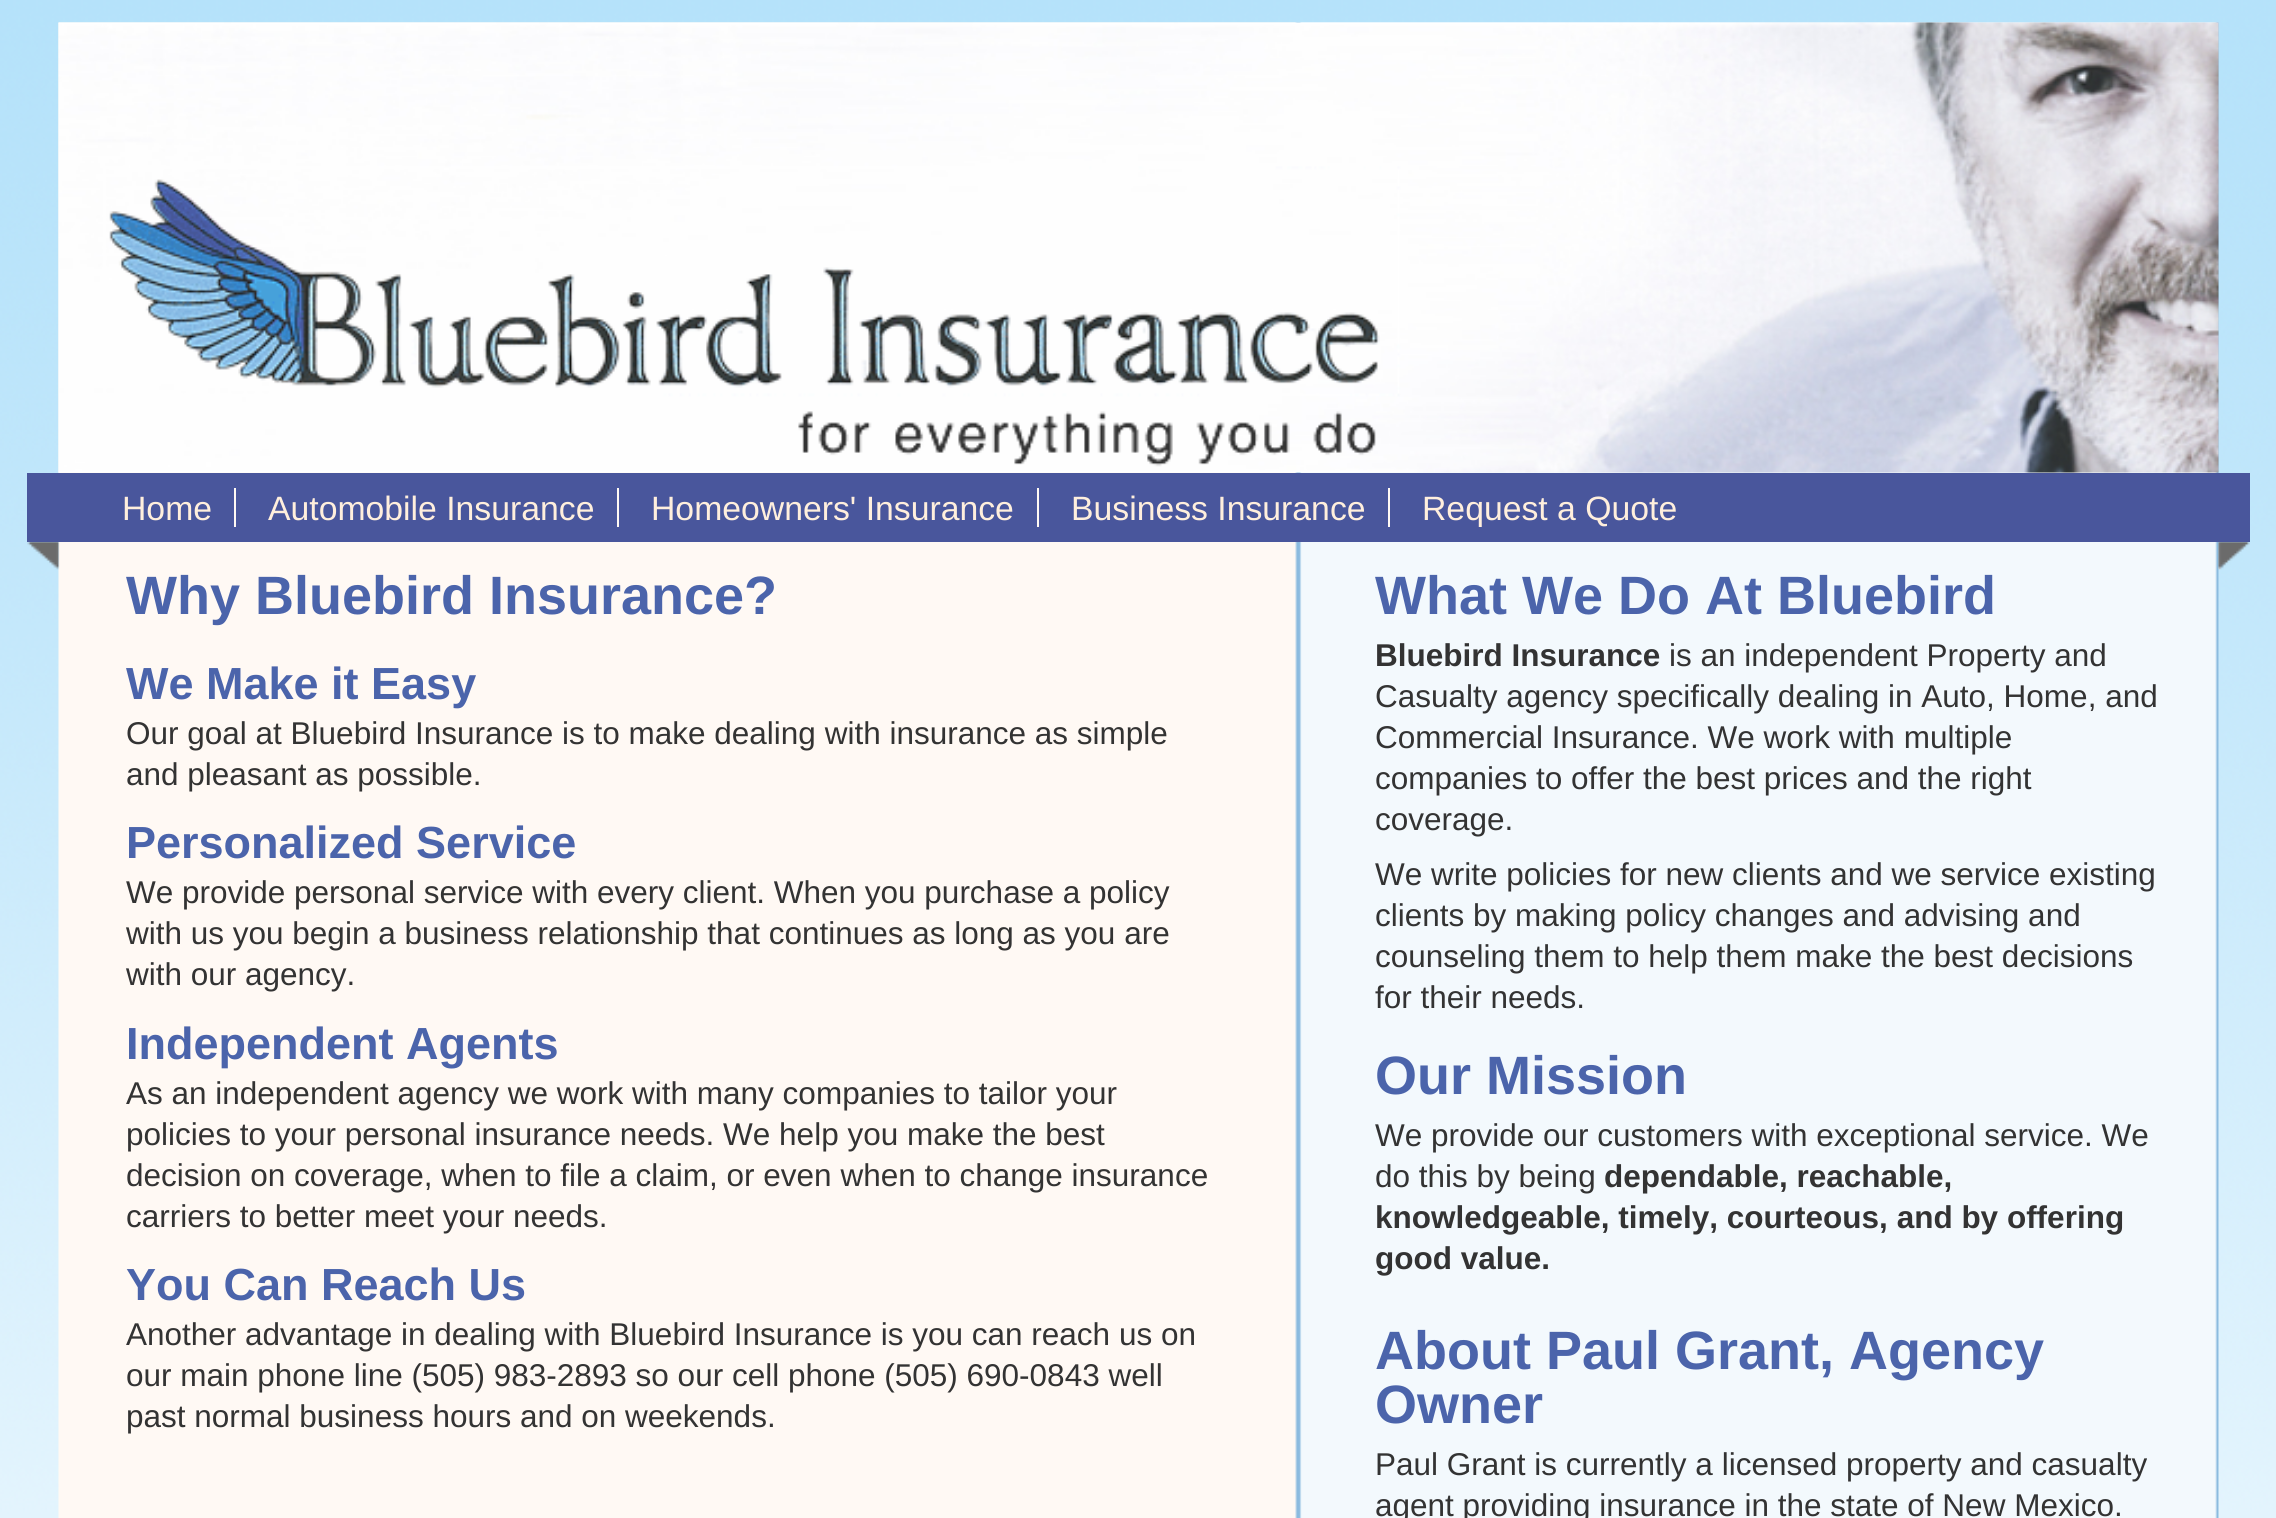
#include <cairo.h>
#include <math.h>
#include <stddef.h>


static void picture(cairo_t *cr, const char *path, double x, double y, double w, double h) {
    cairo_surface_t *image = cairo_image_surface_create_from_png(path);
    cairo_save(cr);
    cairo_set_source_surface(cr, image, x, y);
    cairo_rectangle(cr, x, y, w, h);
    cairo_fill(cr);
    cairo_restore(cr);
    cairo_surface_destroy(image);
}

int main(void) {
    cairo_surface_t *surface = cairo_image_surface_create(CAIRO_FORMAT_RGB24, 2276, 1518);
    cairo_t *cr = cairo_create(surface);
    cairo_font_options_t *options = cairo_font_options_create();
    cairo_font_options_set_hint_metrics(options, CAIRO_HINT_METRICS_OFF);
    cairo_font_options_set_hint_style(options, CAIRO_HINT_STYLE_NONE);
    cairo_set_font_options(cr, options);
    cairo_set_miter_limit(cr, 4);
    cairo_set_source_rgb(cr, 1, 1, 1);
    cairo_paint(cr);
    picture(cr, "img1.png", 0, 0, 2276, 1518);
    picture(cr, "img2.png", 58, 22, 2161, 1496);
    picture(cr, "img3.png", 58, 22, 2161, 451);
    cairo_set_source_rgb(cr, 0.286, 0.337, 0.612);
    cairo_rectangle(cr, 27, 473, 2223, 69);
    cairo_fill(cr);
    cairo_select_font_face(cr, "Liberation Sans", CAIRO_FONT_SLANT_NORMAL, CAIRO_FONT_WEIGHT_NORMAL);
    cairo_set_font_size(cr, 33.75);
    cairo_set_source_rgb(cr, 1, 0.937, 0.867);
    cairo_move_to(cr, 122, 520);
    cairo_show_text(cr, "Home");
    cairo_set_source_rgb(cr, 1, 0.976, 0.957);
    cairo_rectangle(cr, 234, 488, 2, 39);
    cairo_fill(cr);
    cairo_set_source_rgb(cr, 1, 0.937, 0.867);
    cairo_move_to(cr, 268, 520);
    cairo_show_text(cr, "Automobile Insurance");
    cairo_set_source_rgb(cr, 1, 0.976, 0.957);
    cairo_rectangle(cr, 617, 488, 2, 39);
    cairo_fill(cr);
    cairo_set_source_rgb(cr, 1, 0.937, 0.867);
    cairo_move_to(cr, 651, 520);
    cairo_show_text(cr, "Homeowners' Insurance");
    cairo_set_source_rgb(cr, 1, 0.976, 0.957);
    cairo_rectangle(cr, 1037, 488, 2, 39);
    cairo_fill(cr);
    cairo_set_source_rgb(cr, 1, 0.937, 0.867);
    cairo_move_to(cr, 1071, 520);
    cairo_show_text(cr, "Business Insurance");
    cairo_set_source_rgb(cr, 1, 0.976, 0.957);
    cairo_rectangle(cr, 1388, 488, 2, 39);
    cairo_fill(cr);
    cairo_set_source_rgb(cr, 1, 0.937, 0.867);
    cairo_move_to(cr, 1422, 520);
    cairo_show_text(cr, "Request a Quote");
    picture(cr, "img4.png", 27, 542, 2223, 28);
    cairo_select_font_face(cr, "Liberation Sans", CAIRO_FONT_SLANT_NORMAL, CAIRO_FONT_WEIGHT_BOLD);
    cairo_set_font_size(cr, 54);
    cairo_set_source_rgb(cr, 0.294, 0.392, 0.671);
    cairo_move_to(cr, 126, 614);
    cairo_show_text(cr, "Why Bluebird Insurance?");
    cairo_set_font_size(cr, 45);
    cairo_move_to(cr, 126, 699);
    cairo_show_text(cr, "We Make it Easy");
    cairo_select_font_face(cr, "Liberation Sans", CAIRO_FONT_SLANT_NORMAL, CAIRO_FONT_WEIGHT_NORMAL);
    cairo_set_font_size(cr, 31.5);
    cairo_set_source_rgb(cr, 0.2, 0.2, 0.2);
    cairo_move_to(cr, 126, 744);
    cairo_show_text(cr, "Our goal at Bluebird Insurance is to make dealing with insurance as simple");
    cairo_move_to(cr, 126, 785);
    cairo_show_text(cr, "and pleasant as possible.");
    cairo_select_font_face(cr, "Liberation Sans", CAIRO_FONT_SLANT_NORMAL, CAIRO_FONT_WEIGHT_BOLD);
    cairo_set_font_size(cr, 45);
    cairo_set_source_rgb(cr, 0.294, 0.392, 0.671);
    cairo_move_to(cr, 126, 858);
    cairo_show_text(cr, "Personalized Service");
    cairo_select_font_face(cr, "Liberation Sans", CAIRO_FONT_SLANT_NORMAL, CAIRO_FONT_WEIGHT_NORMAL);
    cairo_set_font_size(cr, 31.5);
    cairo_set_source_rgb(cr, 0.2, 0.2, 0.2);
    cairo_move_to(cr, 126, 903);
    cairo_show_text(cr, "We provide personal service with every client. When you purchase a policy");
    cairo_move_to(cr, 126, 944);
    cairo_show_text(cr, "with us you begin a business relationship that continues as long as you are");
    cairo_move_to(cr, 126, 985);
    cairo_show_text(cr, "with our agency.");
    cairo_select_font_face(cr, "Liberation Sans", CAIRO_FONT_SLANT_NORMAL, CAIRO_FONT_WEIGHT_BOLD);
    cairo_set_font_size(cr, 45);
    cairo_set_source_rgb(cr, 0.294, 0.392, 0.671);
    cairo_move_to(cr, 126, 1059);
    cairo_show_text(cr, "Independent Agents");
    cairo_select_font_face(cr, "Liberation Sans", CAIRO_FONT_SLANT_NORMAL, CAIRO_FONT_WEIGHT_NORMAL);
    cairo_set_font_size(cr, 31.5);
    cairo_set_source_rgb(cr, 0.2, 0.2, 0.2);
    cairo_move_to(cr, 126, 1104);
    cairo_show_text(cr, "As an independent agency we work with many companies to tailor your");
    cairo_move_to(cr, 126, 1145);
    cairo_show_text(cr, "policies to your personal insurance needs. We help you make the best");
    cairo_move_to(cr, 126, 1186);
    cairo_show_text(cr, "decision on coverage, when to file a claim, or even when to change insurance");
    cairo_move_to(cr, 126, 1227);
    cairo_show_text(cr, "carriers to better meet your needs.");
    cairo_select_font_face(cr, "Liberation Sans", CAIRO_FONT_SLANT_NORMAL, CAIRO_FONT_WEIGHT_BOLD);
    cairo_set_font_size(cr, 45);
    cairo_set_source_rgb(cr, 0.294, 0.392, 0.671);
    cairo_move_to(cr, 126, 1300);
    cairo_show_text(cr, "You Can Reach Us");
    cairo_select_font_face(cr, "Liberation Sans", CAIRO_FONT_SLANT_NORMAL, CAIRO_FONT_WEIGHT_NORMAL);
    cairo_set_font_size(cr, 31.5);
    cairo_set_source_rgb(cr, 0.2, 0.2, 0.2);
    cairo_move_to(cr, 126, 1345);
    cairo_show_text(cr, "Another advantage in dealing with Bluebird Insurance is you can reach us on");
    cairo_move_to(cr, 126, 1386);
    cairo_show_text(cr, "our main phone line (505) 983-2893 so our cell phone (505) 690-0843 well");
    cairo_move_to(cr, 126, 1427);
    cairo_show_text(cr, "past normal business hours and on weekends.");
    cairo_select_font_face(cr, "Liberation Sans", CAIRO_FONT_SLANT_NORMAL, CAIRO_FONT_WEIGHT_BOLD);
    cairo_set_font_size(cr, 54);
    cairo_set_source_rgb(cr, 0.294, 0.392, 0.671);
    cairo_move_to(cr, 1375, 614);
    cairo_show_text(cr, "What We Do At Bluebird");
    cairo_set_font_size(cr, 31.5);
    cairo_set_source_rgb(cr, 0.2, 0.2, 0.2);
    cairo_move_to(cr, 1375, 666);
    cairo_show_text(cr, "Bluebird Insurance");
    cairo_select_font_face(cr, "Liberation Sans", CAIRO_FONT_SLANT_NORMAL, CAIRO_FONT_WEIGHT_NORMAL);
    cairo_move_to(cr, 1669, 666);
    cairo_show_text(cr, "is an independent Property and");
    cairo_move_to(cr, 1375, 707);
    cairo_show_text(cr, "Casualty agency specifically dealing in Auto, Home, and");
    cairo_move_to(cr, 1375, 748);
    cairo_show_text(cr, "Commercial Insurance. We work with multiple");
    cairo_move_to(cr, 1375, 789);
    cairo_show_text(cr, "companies to offer the best prices and the right");
    cairo_move_to(cr, 1375, 830);
    cairo_show_text(cr, "coverage.");
    cairo_move_to(cr, 1375, 885);
    cairo_show_text(cr, "We write policies for new clients and we service existing");
    cairo_move_to(cr, 1375, 926);
    cairo_show_text(cr, "clients by making policy changes and advising and");
    cairo_move_to(cr, 1375, 967);
    cairo_show_text(cr, "counseling them to help them make the best decisions");
    cairo_move_to(cr, 1375, 1008);
    cairo_show_text(cr, "for their needs.");
    cairo_select_font_face(cr, "Liberation Sans", CAIRO_FONT_SLANT_NORMAL, CAIRO_FONT_WEIGHT_BOLD);
    cairo_set_font_size(cr, 54);
    cairo_set_source_rgb(cr, 0.294, 0.392, 0.671);
    cairo_move_to(cr, 1375, 1094);
    cairo_show_text(cr, "Our Mission");
    cairo_select_font_face(cr, "Liberation Sans", CAIRO_FONT_SLANT_NORMAL, CAIRO_FONT_WEIGHT_NORMAL);
    cairo_set_font_size(cr, 31.5);
    cairo_set_source_rgb(cr, 0.2, 0.2, 0.2);
    cairo_move_to(cr, 1375, 1146);
    cairo_show_text(cr, "We provide our customers with exceptional service. We");
    cairo_move_to(cr, 1375, 1187);
    cairo_show_text(cr, "do this by being");
    cairo_select_font_face(cr, "Liberation Sans", CAIRO_FONT_SLANT_NORMAL, CAIRO_FONT_WEIGHT_BOLD);
    cairo_move_to(cr, 1604, 1187);
    cairo_show_text(cr, "dependable, reachable,");
    cairo_move_to(cr, 1375, 1228);
    cairo_show_text(cr, "knowledgeable, timely, courteous, and by offering");
    cairo_move_to(cr, 1375, 1269);
    cairo_show_text(cr, "good value.");
    cairo_set_font_size(cr, 54);
    cairo_set_source_rgb(cr, 0.294, 0.392, 0.671);
    cairo_move_to(cr, 1375, 1369);
    cairo_show_text(cr, "About Paul Grant, Agency");
    cairo_move_to(cr, 1375, 1423);
    cairo_show_text(cr, "Owner");
    cairo_select_font_face(cr, "Liberation Sans", CAIRO_FONT_SLANT_NORMAL, CAIRO_FONT_WEIGHT_NORMAL);
    cairo_set_font_size(cr, 31.5);
    cairo_set_source_rgb(cr, 0.2, 0.2, 0.2);
    cairo_move_to(cr, 1375, 1475);
    cairo_show_text(cr, "Paul Grant is currently a licensed property and casualty");
    cairo_move_to(cr, 1375, 1516);
    cairo_show_text(cr, "agent providing insurance in the state of New Mexico.");
    cairo_surface_write_to_png(surface, "page.png");
    cairo_font_options_destroy(options);
    cairo_destroy(cr);
    cairo_surface_destroy(surface);
    return 0;
}
